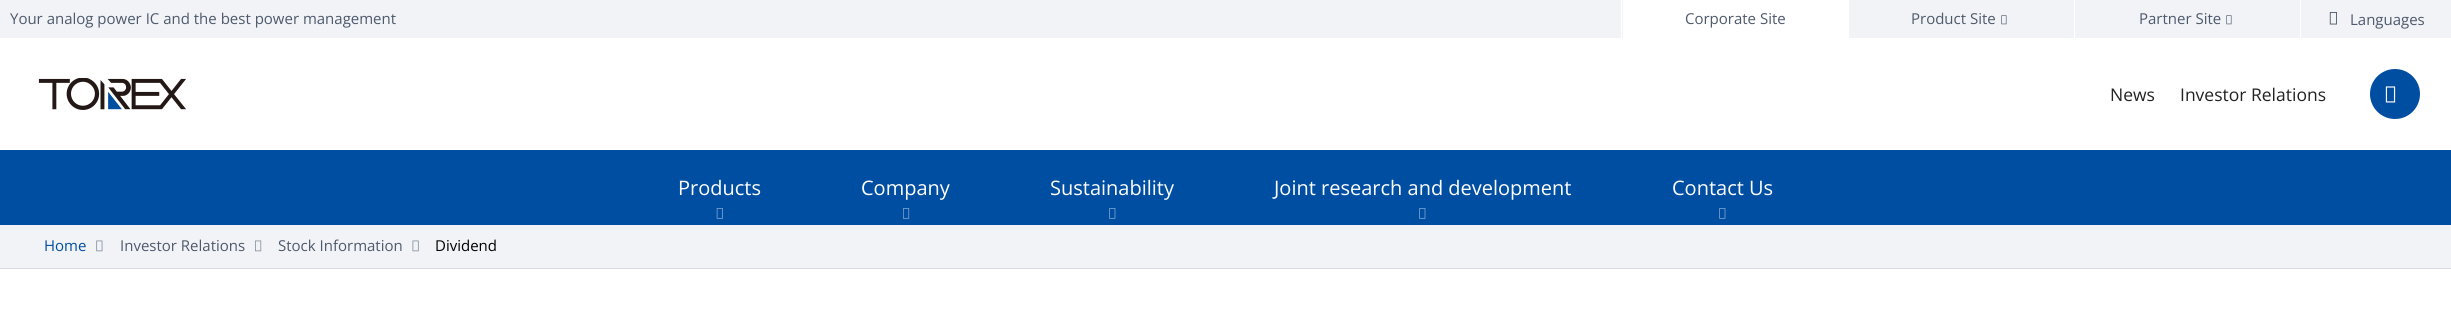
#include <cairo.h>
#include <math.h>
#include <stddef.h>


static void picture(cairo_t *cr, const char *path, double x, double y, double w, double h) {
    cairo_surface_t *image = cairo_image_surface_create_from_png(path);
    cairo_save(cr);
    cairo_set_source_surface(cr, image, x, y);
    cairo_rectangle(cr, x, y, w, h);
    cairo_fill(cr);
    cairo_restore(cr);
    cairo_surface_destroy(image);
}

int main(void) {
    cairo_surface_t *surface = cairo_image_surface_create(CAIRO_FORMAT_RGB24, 2451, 321);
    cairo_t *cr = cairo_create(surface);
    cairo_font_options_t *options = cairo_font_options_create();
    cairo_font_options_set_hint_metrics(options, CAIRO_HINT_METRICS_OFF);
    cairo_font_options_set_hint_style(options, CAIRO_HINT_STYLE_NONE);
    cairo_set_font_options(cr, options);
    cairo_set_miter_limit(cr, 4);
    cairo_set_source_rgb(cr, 1, 1, 1);
    cairo_paint(cr);
    cairo_set_source_rgb(cr, 0.949, 0.953, 0.961);
    cairo_rectangle(cr, 0, 0, 1621, 38);
    cairo_fill(cr);
    cairo_select_font_face(cr, "Open Sans", CAIRO_FONT_SLANT_NORMAL, CAIRO_FONT_WEIGHT_NORMAL);
    cairo_set_font_size(cr, 15);
    cairo_set_source_rgb(cr, 0.302, 0.349, 0.424);
    cairo_move_to(cr, 10, 24);
    cairo_show_text(cr, "Your analog power IC and the best power management");
    cairo_set_source_rgb(cr, 0.949, 0.953, 0.961);
    cairo_rectangle(cr, 1622, 0, 829, 38);
    cairo_fill(cr);
    cairo_set_source_rgb(cr, 1, 1, 1);
    cairo_rectangle(cr, 1623, 0, 226, 38);
    cairo_fill(cr);
    cairo_set_source_rgb(cr, 0.302, 0.349, 0.424);
    cairo_move_to(cr, 1685, 24);
    cairo_show_text(cr, "Corporate Site");
    cairo_move_to(cr, 1911, 24);
    cairo_show_text(cr, "Product Site");
    picture(cr, "img1.png", 2001, 15, 6, 10);
    cairo_set_source_rgb(cr, 1, 1, 1);
    cairo_rectangle(cr, 2074, 0, 1, 38);
    cairo_fill(cr);
    cairo_set_source_rgb(cr, 0.302, 0.349, 0.424);
    cairo_move_to(cr, 2139, 24);
    cairo_show_text(cr, "Partner Site");
    picture(cr, "img1.png", 2226, 15, 6, 10);
    cairo_set_source_rgb(cr, 1, 1, 1);
    cairo_rectangle(cr, 2300, 0, 1, 38);
    cairo_fill(cr);
    picture(cr, "img2.png", 2329, 12, 8, 13);
    cairo_set_source_rgb(cr, 0.302, 0.349, 0.424);
    cairo_move_to(cr, 2350, 25);
    cairo_show_text(cr, "Languages");
    picture(cr, "img3.png", 38, 78, 148, 32);
    cairo_set_font_size(cr, 17.5);
    cairo_set_source_rgb(cr, 0.133, 0.133, 0.133);
    cairo_move_to(cr, 2110, 101);
    cairo_show_text(cr, "News");
    cairo_move_to(cr, 2180, 101);
    cairo_show_text(cr, "Investor Relations");
    cairo_set_source_rgb(cr, 0, 0.306, 0.635);
    cairo_new_path(cr);
    cairo_arc(cr, 2395, 94, 25, 0, 2 * M_PI);
    cairo_fill(cr);
    picture(cr, "img4.png", 2385, 86, 11, 17);
    cairo_rectangle(cr, 0, 150, 2451, 75);
    cairo_fill(cr);
    cairo_set_font_size(cr, 20);
    cairo_set_source_rgb(cr, 1, 1, 1);
    cairo_move_to(cr, 678, 195);
    cairo_show_text(cr, "Products");
    picture(cr, "img5.png", 716, 208, 7, 11);
    cairo_move_to(cr, 861, 195);
    cairo_show_text(cr, "Company");
    picture(cr, "img6.png", 903, 208, 7, 11);
    cairo_move_to(cr, 1050, 195);
    cairo_show_text(cr, "Sustainability");
    picture(cr, "img7.png", 1109, 208, 7, 11);
    cairo_move_to(cr, 1274, 195);
    cairo_show_text(cr, "Joint research and development");
    picture(cr, "img7.png", 1419, 208, 7, 11);
    cairo_move_to(cr, 1672, 195);
    cairo_show_text(cr, "Contact Us");
    picture(cr, "img7.png", 1719, 208, 7, 11);
    cairo_set_source_rgb(cr, 0.949, 0.953, 0.961);
    cairo_rectangle(cr, 0, 225, 2451, 43);
    cairo_fill(cr);
    cairo_set_source_rgb(cr, 0.843, 0.859, 0.878);
    cairo_rectangle(cr, 0, 268, 2451, 1);
    cairo_fill(cr);
    cairo_set_font_size(cr, 15);
    cairo_set_source_rgb(cr, 0, 0.306, 0.635);
    cairo_move_to(cr, 44, 251);
    cairo_show_text(cr, "Home");
    picture(cr, "img8.png", 96, 240, 7, 12);
    cairo_set_source_rgb(cr, 0.302, 0.349, 0.424);
    cairo_move_to(cr, 120, 251);
    cairo_show_text(cr, "Investor Relations");
    picture(cr, "img9.png", 255, 240, 7, 12);
    cairo_move_to(cr, 278, 251);
    cairo_show_text(cr, "Stock Information");
    picture(cr, "img10.png", 412, 240, 7, 12);
    cairo_set_source_rgb(cr, 0, 0, 0);
    cairo_move_to(cr, 435, 251);
    cairo_show_text(cr, "Dividend");
    cairo_surface_write_to_png(surface, "page.png");
    cairo_font_options_destroy(options);
    cairo_destroy(cr);
    cairo_surface_destroy(surface);
    return 0;
}
